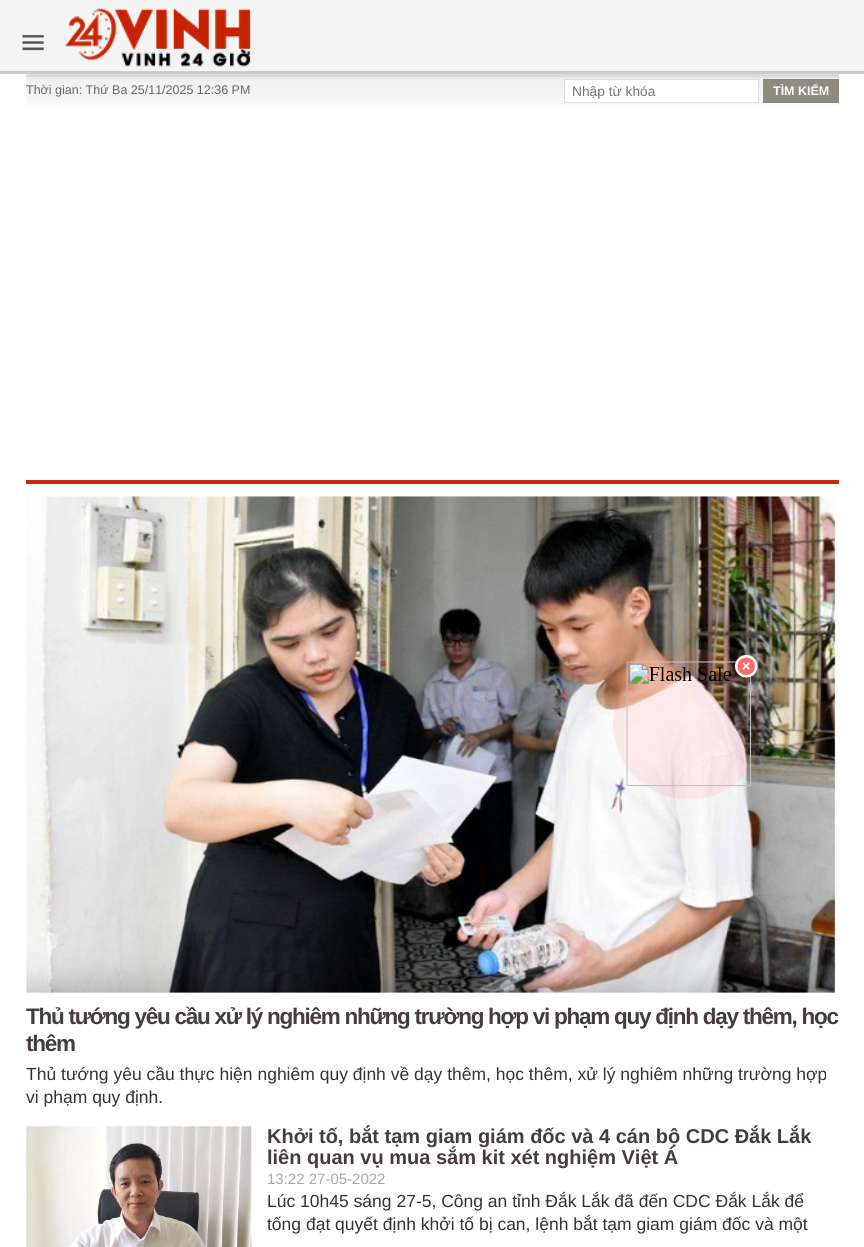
#include <cairo.h>
#include <math.h>
#include <stddef.h>


static void spaced_text(cairo_t *cr, double x, double y, const char *s, double letter, double word) {
    cairo_move_to(cr, x, y);
    while (*s) {
        char ch[5] = {0};
        int n = 0;
        do ch[n++] = *s++; while ((*s & 0xC0) == 0x80);
        cairo_show_text(cr, ch);
        cairo_rel_move_to(cr, letter + word * (*ch == ' '), 0);
    }
}

static void picture(cairo_t *cr, const char *path, double x, double y, double w, double h) {
    cairo_surface_t *image = cairo_image_surface_create_from_png(path);
    cairo_save(cr);
    cairo_set_source_surface(cr, image, x, y);
    cairo_rectangle(cr, x, y, w, h);
    cairo_fill(cr);
    cairo_restore(cr);
    cairo_surface_destroy(image);
}

int main(void) {
    cairo_surface_t *surface = cairo_image_surface_create(CAIRO_FORMAT_RGB24, 864, 1247);
    cairo_t *cr = cairo_create(surface);
    cairo_font_options_t *options = cairo_font_options_create();
    cairo_font_options_set_hint_metrics(options, CAIRO_HINT_METRICS_OFF);
    cairo_font_options_set_hint_style(options, CAIRO_HINT_STYLE_NONE);
    cairo_set_font_options(cr, options);
    cairo_set_miter_limit(cr, 4);
    cairo_set_source_rgb(cr, 1, 1, 1);
    cairo_paint(cr);
    cairo_set_source_rgb(cr, 0.957, 0.957, 0.957);
    cairo_rectangle(cr, 0, 0, 864, 71);
    cairo_fill(cr);
    cairo_set_source_rgb(cr, 0.8, 0.8, 0.8);
    cairo_rectangle(cr, 0, 71, 864, 3);
    cairo_fill(cr);
    picture(cr, "img1.png", 22, 34, 22, 17);
    picture(cr, "img2.png", 65, 8, 186, 59);
    picture(cr, "img3.png", 26, 75, 813, 30);
    cairo_set_source_rgb(cr, 0.867, 0.867, 0.867);
    cairo_rectangle(cr, 26, 74, 813, 1);
    cairo_fill(cr);
    cairo_select_font_face(cr, "Liberation Sans", CAIRO_FONT_SLANT_NORMAL, CAIRO_FONT_WEIGHT_NORMAL);
    cairo_set_font_size(cr, 12.5);
    cairo_set_source_rgb(cr, 0.4, 0.4, 0.4);
    cairo_move_to(cr, 26, 94);
    cairo_show_text(cr, "Thời gian: Thứ Ba 25/11/2025 12:36 PM");
    cairo_set_source_rgb(cr, 1, 1, 1);
    cairo_rectangle(cr, 564.5, 79.5, 194, 23);
    cairo_fill_preserve(cr);
    cairo_set_source_rgb(cr, 0.867, 0.867, 0.867);
    cairo_set_line_width(cr, 1);
    cairo_stroke(cr);
    cairo_set_font_size(cr, 13.75);
    cairo_set_source_rgb(cr, 0.459, 0.459, 0.459);
    cairo_move_to(cr, 572, 96);
    cairo_show_text(cr, "Nhập từ khóa");
    cairo_set_source_rgb(cr, 0.557, 0.545, 0.502);
    cairo_rectangle(cr, 763, 79, 76, 24);
    cairo_fill(cr);
    cairo_select_font_face(cr, "Liberation Sans", CAIRO_FONT_SLANT_NORMAL, CAIRO_FONT_WEIGHT_BOLD);
    cairo_set_font_size(cr, 12.5);
    cairo_set_source_rgb(cr, 1, 1, 1);
    cairo_move_to(cr, 773, 95);
    cairo_show_text(cr, "TÌM KIẾM");
    cairo_set_source_rgb(cr, 0.8, 0.157, 0.027);
    cairo_rectangle(cr, 26, 480, 813, 4);
    cairo_fill(cr);
    picture(cr, "img4.png", 26, 496, 813, 500);
    cairo_set_font_size(cr, 22.5);
    cairo_set_source_rgb(cr, 0.275, 0.235, 0.247);
    spaced_text(cr, 26, 1024, "Thủ tướng yêu cầu xử lý nghiêm những trường hợp vi phạm quy định dạy thêm, học", -1.25, 0);
    spaced_text(cr, 26, 1051, "thêm", -1.25, 0);
    cairo_select_font_face(cr, "Liberation Sans", CAIRO_FONT_SLANT_NORMAL, CAIRO_FONT_WEIGHT_NORMAL);
    cairo_set_font_size(cr, 17.5);
    cairo_set_source_rgb(cr, 0.2, 0.2, 0.2);
    cairo_move_to(cr, 26, 1080);
    cairo_show_text(cr, "Thủ tướng yêu cầu thực hiện nghiêm quy định về dạy thêm, học thêm, xử lý nghiêm những trường hợp");
    cairo_move_to(cr, 26, 1103);
    cairo_show_text(cr, "vi phạm quy định.");
    picture(cr, "img5.png", 26, 1126, 226, 121);
    cairo_select_font_face(cr, "Liberation Sans", CAIRO_FONT_SLANT_NORMAL, CAIRO_FONT_WEIGHT_BOLD);
    cairo_set_font_size(cr, 20);
    cairo_set_source_rgb(cr, 0.275, 0.235, 0.247);
    cairo_move_to(cr, 267, 1143);
    cairo_show_text(cr, "Khởi tố, bắt tạm giam giám đốc và 4 cán bộ CDC Đắk Lắk");
    cairo_move_to(cr, 267, 1164);
    cairo_show_text(cr, "liên quan vụ mua sắm kit xét nghiệm Việt Á");
    cairo_select_font_face(cr, "Liberation Sans", CAIRO_FONT_SLANT_NORMAL, CAIRO_FONT_WEIGHT_NORMAL);
    cairo_set_font_size(cr, 15);
    cairo_set_source_rgb(cr, 0.655, 0.655, 0.655);
    cairo_move_to(cr, 267, 1184);
    cairo_show_text(cr, "13:22 27-05-2022");
    cairo_set_font_size(cr, 17.5);
    cairo_set_source_rgb(cr, 0.2, 0.2, 0.2);
    cairo_move_to(cr, 267, 1207);
    cairo_show_text(cr, "Lúc 10h45 sáng 27-5, Công an tỉnh Đắk Lắk đã đến CDC Đắk Lắk để");
    cairo_move_to(cr, 267, 1230);
    cairo_show_text(cr, "tống đạt quyết định khởi tố bị can, lệnh bắt tạm giam giám đốc và một");
    picture(cr, "img6.png", 613, 648, 152, 152);
    cairo_surface_write_to_png(surface, "page.png");
    cairo_font_options_destroy(options);
    cairo_destroy(cr);
    cairo_surface_destroy(surface);
    return 0;
}
